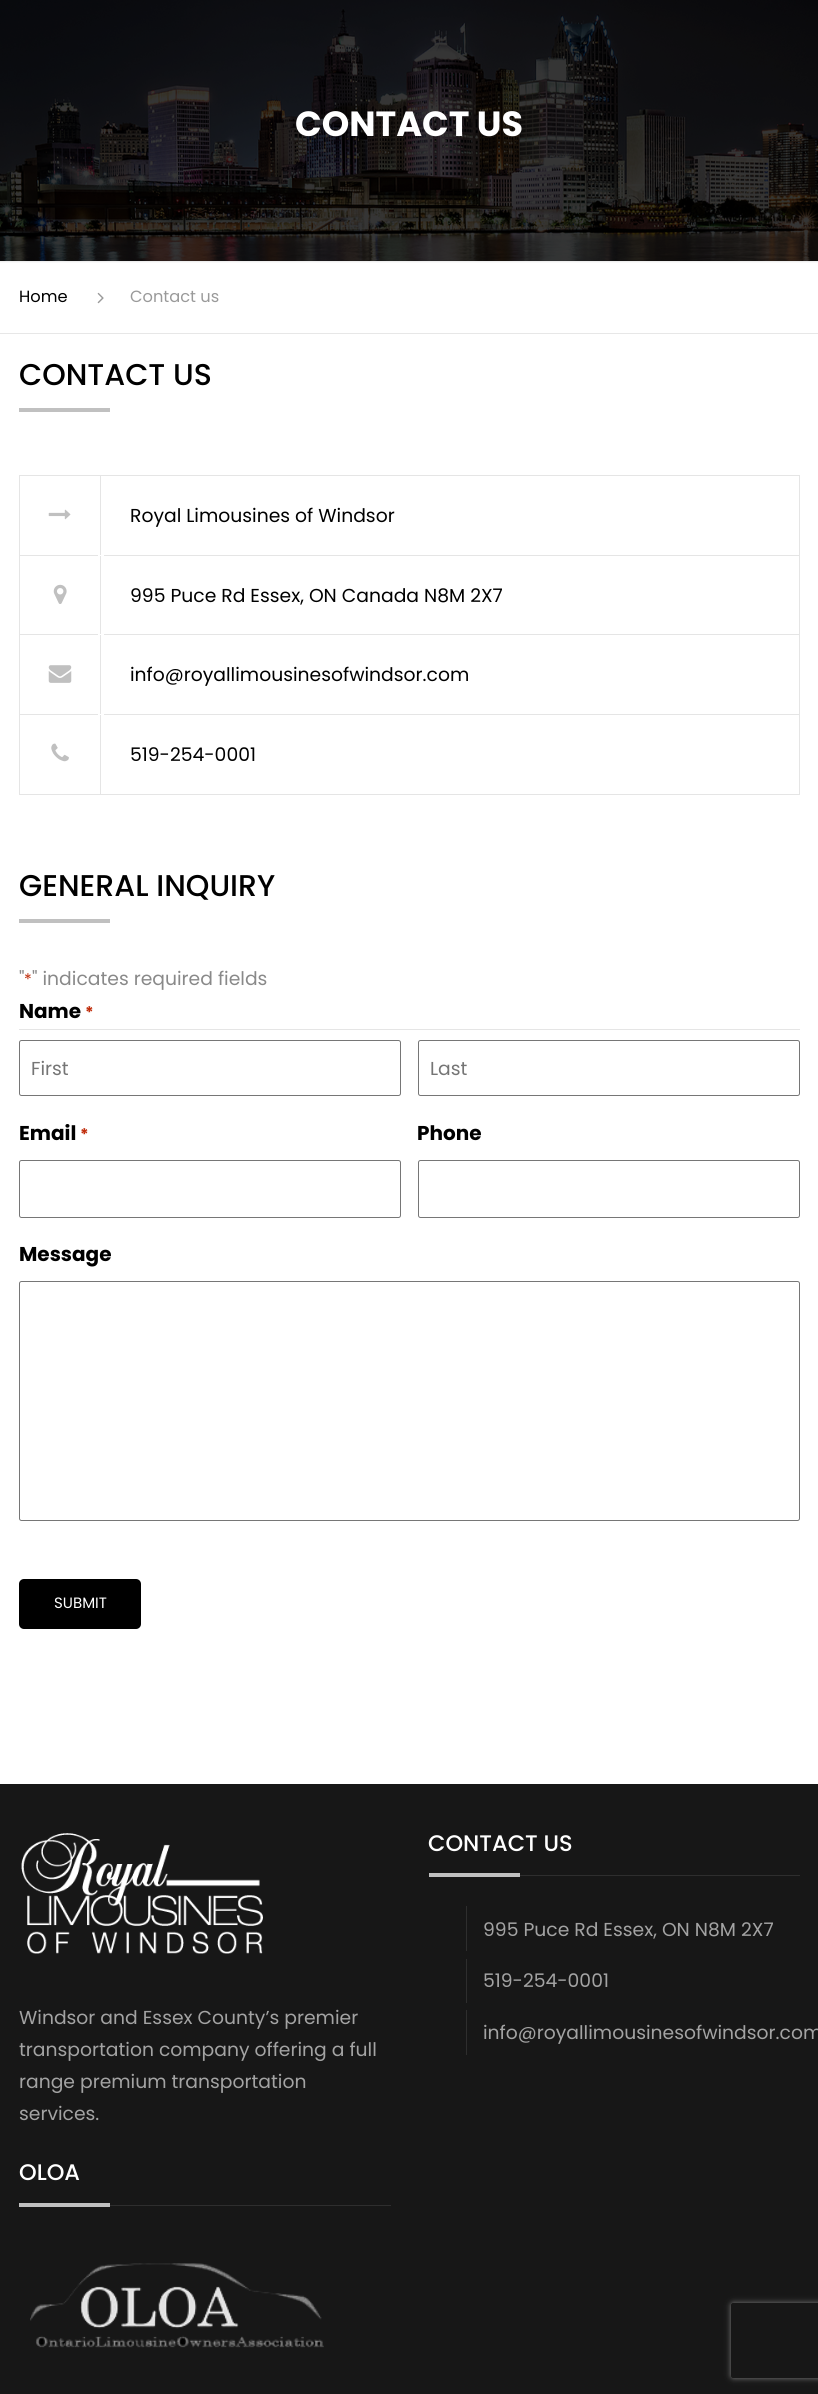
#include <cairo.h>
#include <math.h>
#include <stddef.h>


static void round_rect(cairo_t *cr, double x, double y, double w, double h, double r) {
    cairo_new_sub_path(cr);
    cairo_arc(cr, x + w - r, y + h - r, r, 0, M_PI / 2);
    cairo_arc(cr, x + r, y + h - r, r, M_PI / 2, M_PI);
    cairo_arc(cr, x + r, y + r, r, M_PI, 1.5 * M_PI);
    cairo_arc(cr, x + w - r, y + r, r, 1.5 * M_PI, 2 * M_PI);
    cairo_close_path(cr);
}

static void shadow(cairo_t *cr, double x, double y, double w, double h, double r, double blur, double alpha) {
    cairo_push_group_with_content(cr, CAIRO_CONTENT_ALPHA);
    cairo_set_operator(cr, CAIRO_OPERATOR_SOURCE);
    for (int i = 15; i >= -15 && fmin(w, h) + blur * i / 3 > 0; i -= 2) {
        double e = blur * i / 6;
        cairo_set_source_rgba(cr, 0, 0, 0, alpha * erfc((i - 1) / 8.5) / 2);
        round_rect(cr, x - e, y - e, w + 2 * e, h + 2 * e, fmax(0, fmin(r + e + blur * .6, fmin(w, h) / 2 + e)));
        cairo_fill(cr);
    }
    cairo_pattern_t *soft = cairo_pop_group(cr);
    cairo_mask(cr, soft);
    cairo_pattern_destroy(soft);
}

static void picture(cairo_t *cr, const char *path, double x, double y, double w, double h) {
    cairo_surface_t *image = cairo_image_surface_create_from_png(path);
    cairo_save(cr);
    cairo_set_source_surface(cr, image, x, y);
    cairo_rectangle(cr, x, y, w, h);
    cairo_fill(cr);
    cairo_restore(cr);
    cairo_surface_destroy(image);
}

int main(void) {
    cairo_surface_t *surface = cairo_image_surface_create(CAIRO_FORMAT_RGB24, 818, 2394);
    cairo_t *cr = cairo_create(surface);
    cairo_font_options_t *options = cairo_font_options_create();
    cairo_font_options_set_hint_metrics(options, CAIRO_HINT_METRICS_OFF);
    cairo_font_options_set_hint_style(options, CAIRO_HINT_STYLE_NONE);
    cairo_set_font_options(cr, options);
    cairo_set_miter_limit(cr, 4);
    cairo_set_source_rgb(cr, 1, 1, 1);
    cairo_paint(cr);
    cairo_set_source_rgb(cr, 0.973, 0.976, 0.976);
    cairo_rectangle(cr, 0, 262, 818, 1);
    cairo_fill(cr);
    picture(cr, "img1.png", 0, 0, 818, 261);
    cairo_set_source_rgb(cr, 0.933, 0.933, 0.933);
    cairo_rectangle(cr, 0, 261, 818, 1);
    cairo_fill(cr);
    cairo_select_font_face(cr, "Poppins", CAIRO_FONT_SLANT_NORMAL, CAIRO_FONT_WEIGHT_BOLD);
    cairo_set_font_size(cr, 35);
    cairo_set_source_rgb(cr, 1, 1, 1);
    cairo_move_to(cr, 295, 136);
    cairo_show_text(cr, "CONTACT US");
    cairo_set_source_rgb(cr, 0.906, 0.906, 0.906);
    cairo_rectangle(cr, 0, 333, 818, 1);
    cairo_fill(cr);
    cairo_select_font_face(cr, "Poppins", CAIRO_FONT_SLANT_NORMAL, CAIRO_FONT_WEIGHT_NORMAL);
    cairo_set_font_size(cr, 16.25);
    cairo_set_source_rgb(cr, 0, 0, 0);
    cairo_move_to(cr, 19, 302);
    cairo_show_text(cr, "Home");
    picture(cr, "img2.png", 97, 292, 7, 12);
    cairo_set_source_rgb(cr, 0.604, 0.604, 0.604);
    cairo_move_to(cr, 130, 302);
    cairo_show_text(cr, "Contact us");
    cairo_select_font_face(cr, "Poppins Medium", CAIRO_FONT_SLANT_NORMAL, CAIRO_FONT_WEIGHT_NORMAL);
    cairo_set_font_size(cr, 30);
    cairo_set_source_rgb(cr, 0, 0, 0);
    cairo_move_to(cr, 19, 385);
    cairo_show_text(cr, "CONTACT US");
    cairo_set_source_rgb(cr, 0.753, 0.753, 0.753);
    cairo_rectangle(cr, 19, 408, 91, 4);
    cairo_fill(cr);
    cairo_set_source_rgb(cr, 0.898, 0.898, 0.898);
    cairo_rectangle(cr, 19, 475, 781, 1);
    cairo_fill(cr);
    cairo_rectangle(cr, 799, 475, 1, 320);
    cairo_fill(cr);
    cairo_rectangle(cr, 19, 475, 1, 320);
    cairo_fill(cr);
    cairo_rectangle(cr, 100, 794, 700, 1);
    cairo_fill(cr);
    cairo_rectangle(cr, 100, 714, 1, 81);
    cairo_fill(cr);
    cairo_rectangle(cr, 100, 714, 700, 1);
    cairo_fill(cr);
    cairo_rectangle(cr, 100, 634, 1, 81);
    cairo_fill(cr);
    cairo_rectangle(cr, 100, 634, 700, 1);
    cairo_fill(cr);
    cairo_rectangle(cr, 100, 555, 1, 80);
    cairo_fill(cr);
    cairo_rectangle(cr, 100, 555, 700, 1);
    cairo_fill(cr);
    cairo_rectangle(cr, 100, 475, 1, 81);
    cairo_fill(cr);
    cairo_rectangle(cr, 19, 555, 82, 1);
    cairo_fill(cr);
    picture(cr, "img3.png", 48, 509, 23, 11);
    cairo_select_font_face(cr, "Poppins", CAIRO_FONT_SLANT_NORMAL, CAIRO_FONT_WEIGHT_NORMAL);
    cairo_set_font_size(cr, 18.75);
    cairo_set_source_rgb(cr, 0, 0, 0);
    cairo_move_to(cr, 130, 522);
    cairo_show_text(cr, "Royal Limousines of Windsor");
    cairo_set_source_rgb(cr, 0.898, 0.898, 0.898);
    cairo_rectangle(cr, 19, 634, 82, 1);
    cairo_fill(cr);
    cairo_set_source_rgb(cr, 1, 1, 1);
    cairo_rectangle(cr, 98, 555, 6, 1);
    cairo_fill(cr);
    picture(cr, "img4.png", 53, 584, 14, 20);
    cairo_set_source_rgb(cr, 0, 0, 0);
    cairo_move_to(cr, 130, 602);
    cairo_show_text(cr, "995 Puce Rd Essex, ON Canada N8M 2X7");
    cairo_set_source_rgb(cr, 0.898, 0.898, 0.898);
    cairo_rectangle(cr, 19, 714, 82, 1);
    cairo_fill(cr);
    cairo_set_source_rgb(cr, 1, 1, 1);
    cairo_rectangle(cr, 98, 634, 6, 1);
    cairo_fill(cr);
    picture(cr, "img5.png", 48, 665, 24, 18);
    cairo_set_source_rgb(cr, 0, 0, 0);
    cairo_move_to(cr, 130, 681);
    cairo_show_text(cr, "info@royallimousinesofwindsor.com");
    cairo_set_source_rgb(cr, 0.898, 0.898, 0.898);
    cairo_rectangle(cr, 19, 794, 82, 1);
    cairo_fill(cr);
    cairo_set_source_rgb(cr, 1, 1, 1);
    cairo_rectangle(cr, 98, 714, 6, 1);
    cairo_fill(cr);
    picture(cr, "img6.png", 51, 743, 18, 19);
    cairo_set_source_rgb(cr, 0, 0, 0);
    cairo_move_to(cr, 130, 761);
    cairo_show_text(cr, "519-254-0001");
    cairo_select_font_face(cr, "Poppins Medium", CAIRO_FONT_SLANT_NORMAL, CAIRO_FONT_WEIGHT_NORMAL);
    cairo_set_font_size(cr, 30);
    cairo_move_to(cr, 19, 896);
    cairo_show_text(cr, "GENERAL INQUIRY");
    cairo_set_source_rgb(cr, 0.753, 0.753, 0.753);
    cairo_rectangle(cr, 19, 919, 91, 4);
    cairo_fill(cr);
    cairo_select_font_face(cr, "Poppins", CAIRO_FONT_SLANT_NORMAL, CAIRO_FONT_WEIGHT_NORMAL);
    cairo_set_font_size(cr, 18.75);
    cairo_set_source_rgb(cr, 0.537, 0.537, 0.537);
    cairo_move_to(cr, 19, 985);
    cairo_show_text(cr, "\"");
    cairo_set_font_size(cr, 16);
    cairo_set_source_rgb(cr, 0.753, 0.169, 0.039);
    cairo_move_to(cr, 24, 985);
    cairo_show_text(cr, "*");
    cairo_set_font_size(cr, 18.75);
    cairo_set_source_rgb(cr, 0.537, 0.537, 0.537);
    cairo_move_to(cr, 32, 985);
    cairo_show_text(cr, "\" indicates required fields");
    cairo_set_source_rgb(cr, 0.898, 0.898, 0.898);
    cairo_rectangle(cr, 19, 1029, 781, 1);
    cairo_fill(cr);
    cairo_select_font_face(cr, "Poppins", CAIRO_FONT_SLANT_NORMAL, CAIRO_FONT_WEIGHT_BOLD);
    cairo_set_font_size(cr, 20);
    cairo_set_source_rgb(cr, 0, 0, 0);
    cairo_move_to(cr, 19, 1018);
    cairo_show_text(cr, "Name");
    cairo_set_font_size(cr, 16);
    cairo_set_source_rgb(cr, 0.753, 0.169, 0.039);
    cairo_move_to(cr, 85, 1018);
    cairo_show_text(cr, "*");
    round_rect(cr, 19.5, 1040.5, 381, 55, 2);
    cairo_set_source_rgb(cr, 0.463, 0.463, 0.463);
    cairo_set_line_width(cr, 1);
    cairo_stroke(cr);
    cairo_select_font_face(cr, "Poppins", CAIRO_FONT_SLANT_NORMAL, CAIRO_FONT_WEIGHT_NORMAL);
    cairo_set_font_size(cr, 18.75);
    cairo_set_source_rgb(cr, 0.459, 0.459, 0.459);
    cairo_move_to(cr, 31, 1075);
    cairo_show_text(cr, "First");
    round_rect(cr, 418.5, 1040.5, 381, 55, 2);
    cairo_set_source_rgb(cr, 0.463, 0.463, 0.463);
    cairo_stroke(cr);
    cairo_set_source_rgb(cr, 0.459, 0.459, 0.459);
    cairo_move_to(cr, 430, 1075);
    cairo_show_text(cr, "Last");
    cairo_select_font_face(cr, "Poppins", CAIRO_FONT_SLANT_NORMAL, CAIRO_FONT_WEIGHT_BOLD);
    cairo_set_font_size(cr, 20);
    cairo_set_source_rgb(cr, 0, 0, 0);
    cairo_move_to(cr, 19, 1140);
    cairo_show_text(cr, "Email");
    cairo_set_font_size(cr, 16);
    cairo_set_source_rgb(cr, 0.753, 0.169, 0.039);
    cairo_move_to(cr, 80, 1140);
    cairo_show_text(cr, "*");
    round_rect(cr, 19.5, 1160.5, 381, 57, 2);
    cairo_set_source_rgb(cr, 0.463, 0.463, 0.463);
    cairo_stroke(cr);
    cairo_set_font_size(cr, 20);
    cairo_set_source_rgb(cr, 0, 0, 0);
    cairo_move_to(cr, 417, 1140);
    cairo_show_text(cr, "Phone");
    round_rect(cr, 418.5, 1160.5, 381, 57, 2);
    cairo_set_source_rgb(cr, 0.463, 0.463, 0.463);
    cairo_stroke(cr);
    cairo_set_source_rgb(cr, 0, 0, 0);
    cairo_move_to(cr, 19, 1261);
    cairo_show_text(cr, "Message");
    round_rect(cr, 19.5, 1281.5, 780, 239, 2);
    cairo_set_source_rgb(cr, 0.463, 0.463, 0.463);
    cairo_stroke(cr);
    cairo_set_source_rgb(cr, 0.09, 0.09, 0.09);
    cairo_rectangle(cr, 0, 1784, 818, 610);
    cairo_fill(cr);
    cairo_save(cr);
    cairo_set_fill_rule(cr, CAIRO_FILL_RULE_EVEN_ODD);
    cairo_new_path(cr);
    cairo_move_to(cr, 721, 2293);
    cairo_line_to(cr, 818, 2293);
    cairo_line_to(cr, 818, 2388);
    cairo_line_to(cr, 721, 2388);
    cairo_close_path(cr);
    cairo_move_to(cr, 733.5, 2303);
    cairo_line_to(cr, 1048.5, 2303);
    cairo_curve_to(cr, 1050, 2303, 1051, 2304, 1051, 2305.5);
    cairo_line_to(cr, 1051, 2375.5);
    cairo_curve_to(cr, 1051, 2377, 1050, 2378, 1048.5, 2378);
    cairo_line_to(cr, 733.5, 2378);
    cairo_curve_to(cr, 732, 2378, 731, 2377, 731, 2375.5);
    cairo_line_to(cr, 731, 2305.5);
    cairo_curve_to(cr, 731, 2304, 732, 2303, 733.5, 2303);
    cairo_close_path(cr);
    cairo_clip(cr);
    cairo_set_source_rgb(cr, 0.502, 0.502, 0.502);
    shadow(cr, 731, 2303, 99, 75, 2.5, 3, 1);
    cairo_restore(cr);
    cairo_set_source_rgb(cr, 0, 0, 0);
    round_rect(cr, 19, 1579, 122, 50, 5);
    cairo_fill(cr);
    cairo_select_font_face(cr, "Poppins", CAIRO_FONT_SLANT_NORMAL, CAIRO_FONT_WEIGHT_NORMAL);
    cairo_set_font_size(cr, 15);
    cairo_set_source_rgb(cr, 1, 1, 1);
    cairo_move_to(cr, 54, 1608);
    cairo_show_text(cr, "SUBMIT");
    cairo_set_source_rgb(cr, 0.18, 0.18, 0.18);
    cairo_rectangle(cr, 520, 1875, 280, 1);
    cairo_fill(cr);
    cairo_select_font_face(cr, "Poppins Medium", CAIRO_FONT_SLANT_NORMAL, CAIRO_FONT_WEIGHT_NORMAL);
    cairo_set_font_size(cr, 22.5);
    cairo_set_source_rgb(cr, 1, 1, 1);
    cairo_move_to(cr, 428, 1851);
    cairo_show_text(cr, "CONTACT US");
    cairo_set_source_rgb(cr, 0.753, 0.753, 0.753);
    cairo_rectangle(cr, 429, 1873, 91, 4);
    cairo_fill(cr);
    cairo_set_source_rgb(cr, 0.18, 0.18, 0.18);
    cairo_rectangle(cr, 466, 1906, 1, 45);
    cairo_fill(cr);
    cairo_select_font_face(cr, "Poppins", CAIRO_FONT_SLANT_NORMAL, CAIRO_FONT_WEIGHT_NORMAL);
    cairo_set_font_size(cr, 18.75);
    cairo_set_source_rgb(cr, 0.639, 0.639, 0.639);
    cairo_move_to(cr, 483, 1936);
    cairo_show_text(cr, "995 Puce Rd Essex, ON N8M 2X7");
    cairo_set_source_rgb(cr, 0.18, 0.18, 0.18);
    cairo_rectangle(cr, 466, 1959, 1, 44);
    cairo_fill(cr);
    cairo_set_source_rgb(cr, 0.639, 0.639, 0.639);
    cairo_move_to(cr, 483, 1987);
    cairo_show_text(cr, "519-254-0001");
    cairo_set_source_rgb(cr, 0.18, 0.18, 0.18);
    cairo_rectangle(cr, 466, 2010, 1, 45);
    cairo_fill(cr);
    cairo_set_source_rgb(cr, 0.639, 0.639, 0.639);
    cairo_move_to(cr, 483, 2039);
    cairo_show_text(cr, "info@royallimousinesofwindsor.com");
    picture(cr, "img7.png", 21, 1833, 242, 121);
    cairo_move_to(cr, 19, 2024);
    cairo_show_text(cr, "Windsor and Essex County’s premier");
    cairo_move_to(cr, 19, 2056);
    cairo_show_text(cr, "transportation company offering a full");
    cairo_move_to(cr, 19, 2088);
    cairo_show_text(cr, "range premium transportation");
    cairo_move_to(cr, 19, 2120);
    cairo_show_text(cr, "services.");
    cairo_set_source_rgb(cr, 0.18, 0.18, 0.18);
    cairo_rectangle(cr, 110, 2205, 281, 1);
    cairo_fill(cr);
    cairo_select_font_face(cr, "Poppins Medium", CAIRO_FONT_SLANT_NORMAL, CAIRO_FONT_WEIGHT_NORMAL);
    cairo_set_font_size(cr, 22.5);
    cairo_set_source_rgb(cr, 1, 1, 1);
    cairo_move_to(cr, 19, 2180);
    cairo_show_text(cr, "OLOA");
    cairo_set_source_rgb(cr, 0.753, 0.753, 0.753);
    cairo_rectangle(cr, 19, 2203, 91, 4);
    cairo_fill(cr);
    picture(cr, "img8.png", 30, 2263, 294, 85);
    cairo_surface_write_to_png(surface, "page.png");
    cairo_font_options_destroy(options);
    cairo_destroy(cr);
    cairo_surface_destroy(surface);
    return 0;
}
